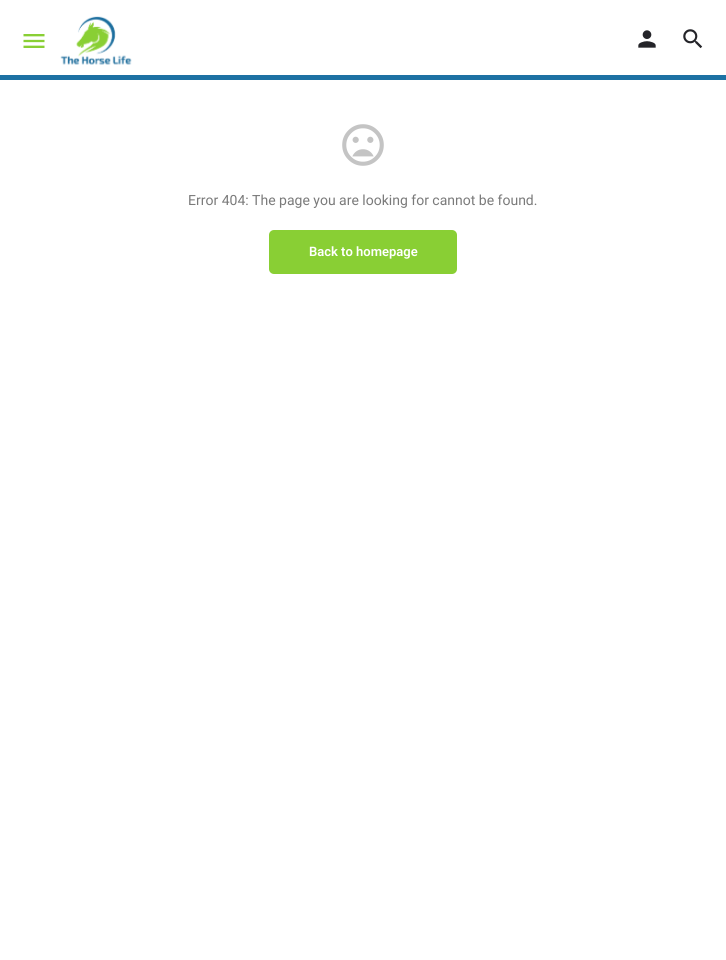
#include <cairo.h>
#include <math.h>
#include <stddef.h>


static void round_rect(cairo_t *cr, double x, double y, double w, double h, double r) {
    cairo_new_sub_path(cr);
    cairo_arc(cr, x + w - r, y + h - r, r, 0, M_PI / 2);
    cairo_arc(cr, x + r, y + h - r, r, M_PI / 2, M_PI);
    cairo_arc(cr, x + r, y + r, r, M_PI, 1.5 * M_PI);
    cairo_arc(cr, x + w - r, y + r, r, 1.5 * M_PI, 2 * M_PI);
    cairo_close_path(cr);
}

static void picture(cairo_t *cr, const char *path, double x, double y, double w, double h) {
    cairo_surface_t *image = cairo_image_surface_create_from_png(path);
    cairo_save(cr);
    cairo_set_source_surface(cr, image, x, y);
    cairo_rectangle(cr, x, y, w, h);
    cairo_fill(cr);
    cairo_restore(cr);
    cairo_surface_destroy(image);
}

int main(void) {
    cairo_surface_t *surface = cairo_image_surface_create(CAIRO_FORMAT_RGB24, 726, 960);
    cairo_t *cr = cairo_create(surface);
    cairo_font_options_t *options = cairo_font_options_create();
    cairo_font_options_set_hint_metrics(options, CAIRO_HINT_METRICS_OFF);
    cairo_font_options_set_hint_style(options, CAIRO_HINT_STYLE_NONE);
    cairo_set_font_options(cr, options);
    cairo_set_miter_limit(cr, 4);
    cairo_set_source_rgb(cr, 1, 1, 1);
    cairo_paint(cr);
    picture(cr, "img1.png", 23, 34, 22, 14);
    picture(cr, "img2.png", 60, 16, 72, 49);
    picture(cr, "img3.png", 638, 30, 18, 18);
    picture(cr, "img4.png", 683, 29, 20, 20);
    cairo_set_source_rgb(cr, 0.114, 0.443, 0.639);
    cairo_rectangle(cr, 0, 75, 726, 5);
    cairo_fill(cr);
    picture(cr, "img5.png", 342, 124, 42, 42);
    cairo_select_font_face(cr, "Roboto", CAIRO_FONT_SLANT_NORMAL, CAIRO_FONT_WEIGHT_NORMAL);
    cairo_set_font_size(cr, 14);
    cairo_set_source_rgb(cr, 0.478, 0.478, 0.478);
    cairo_move_to(cr, 188, 205);
    cairo_show_text(cr, "Error 404: The page you are looking for cannot be found.");
    cairo_set_source_rgb(cr, 0.537, 0.812, 0.204);
    round_rect(cr, 269, 230, 188, 44, 5);
    cairo_fill(cr);
    cairo_select_font_face(cr, "Roboto SemiBold", CAIRO_FONT_SLANT_NORMAL, CAIRO_FONT_WEIGHT_NORMAL);
    cairo_set_font_size(cr, 13);
    cairo_set_source_rgb(cr, 1, 1, 1);
    cairo_move_to(cr, 309, 256);
    cairo_show_text(cr, "Back to homepage");
    cairo_surface_write_to_png(surface, "page.png");
    cairo_font_options_destroy(options);
    cairo_destroy(cr);
    cairo_surface_destroy(surface);
    return 0;
}
